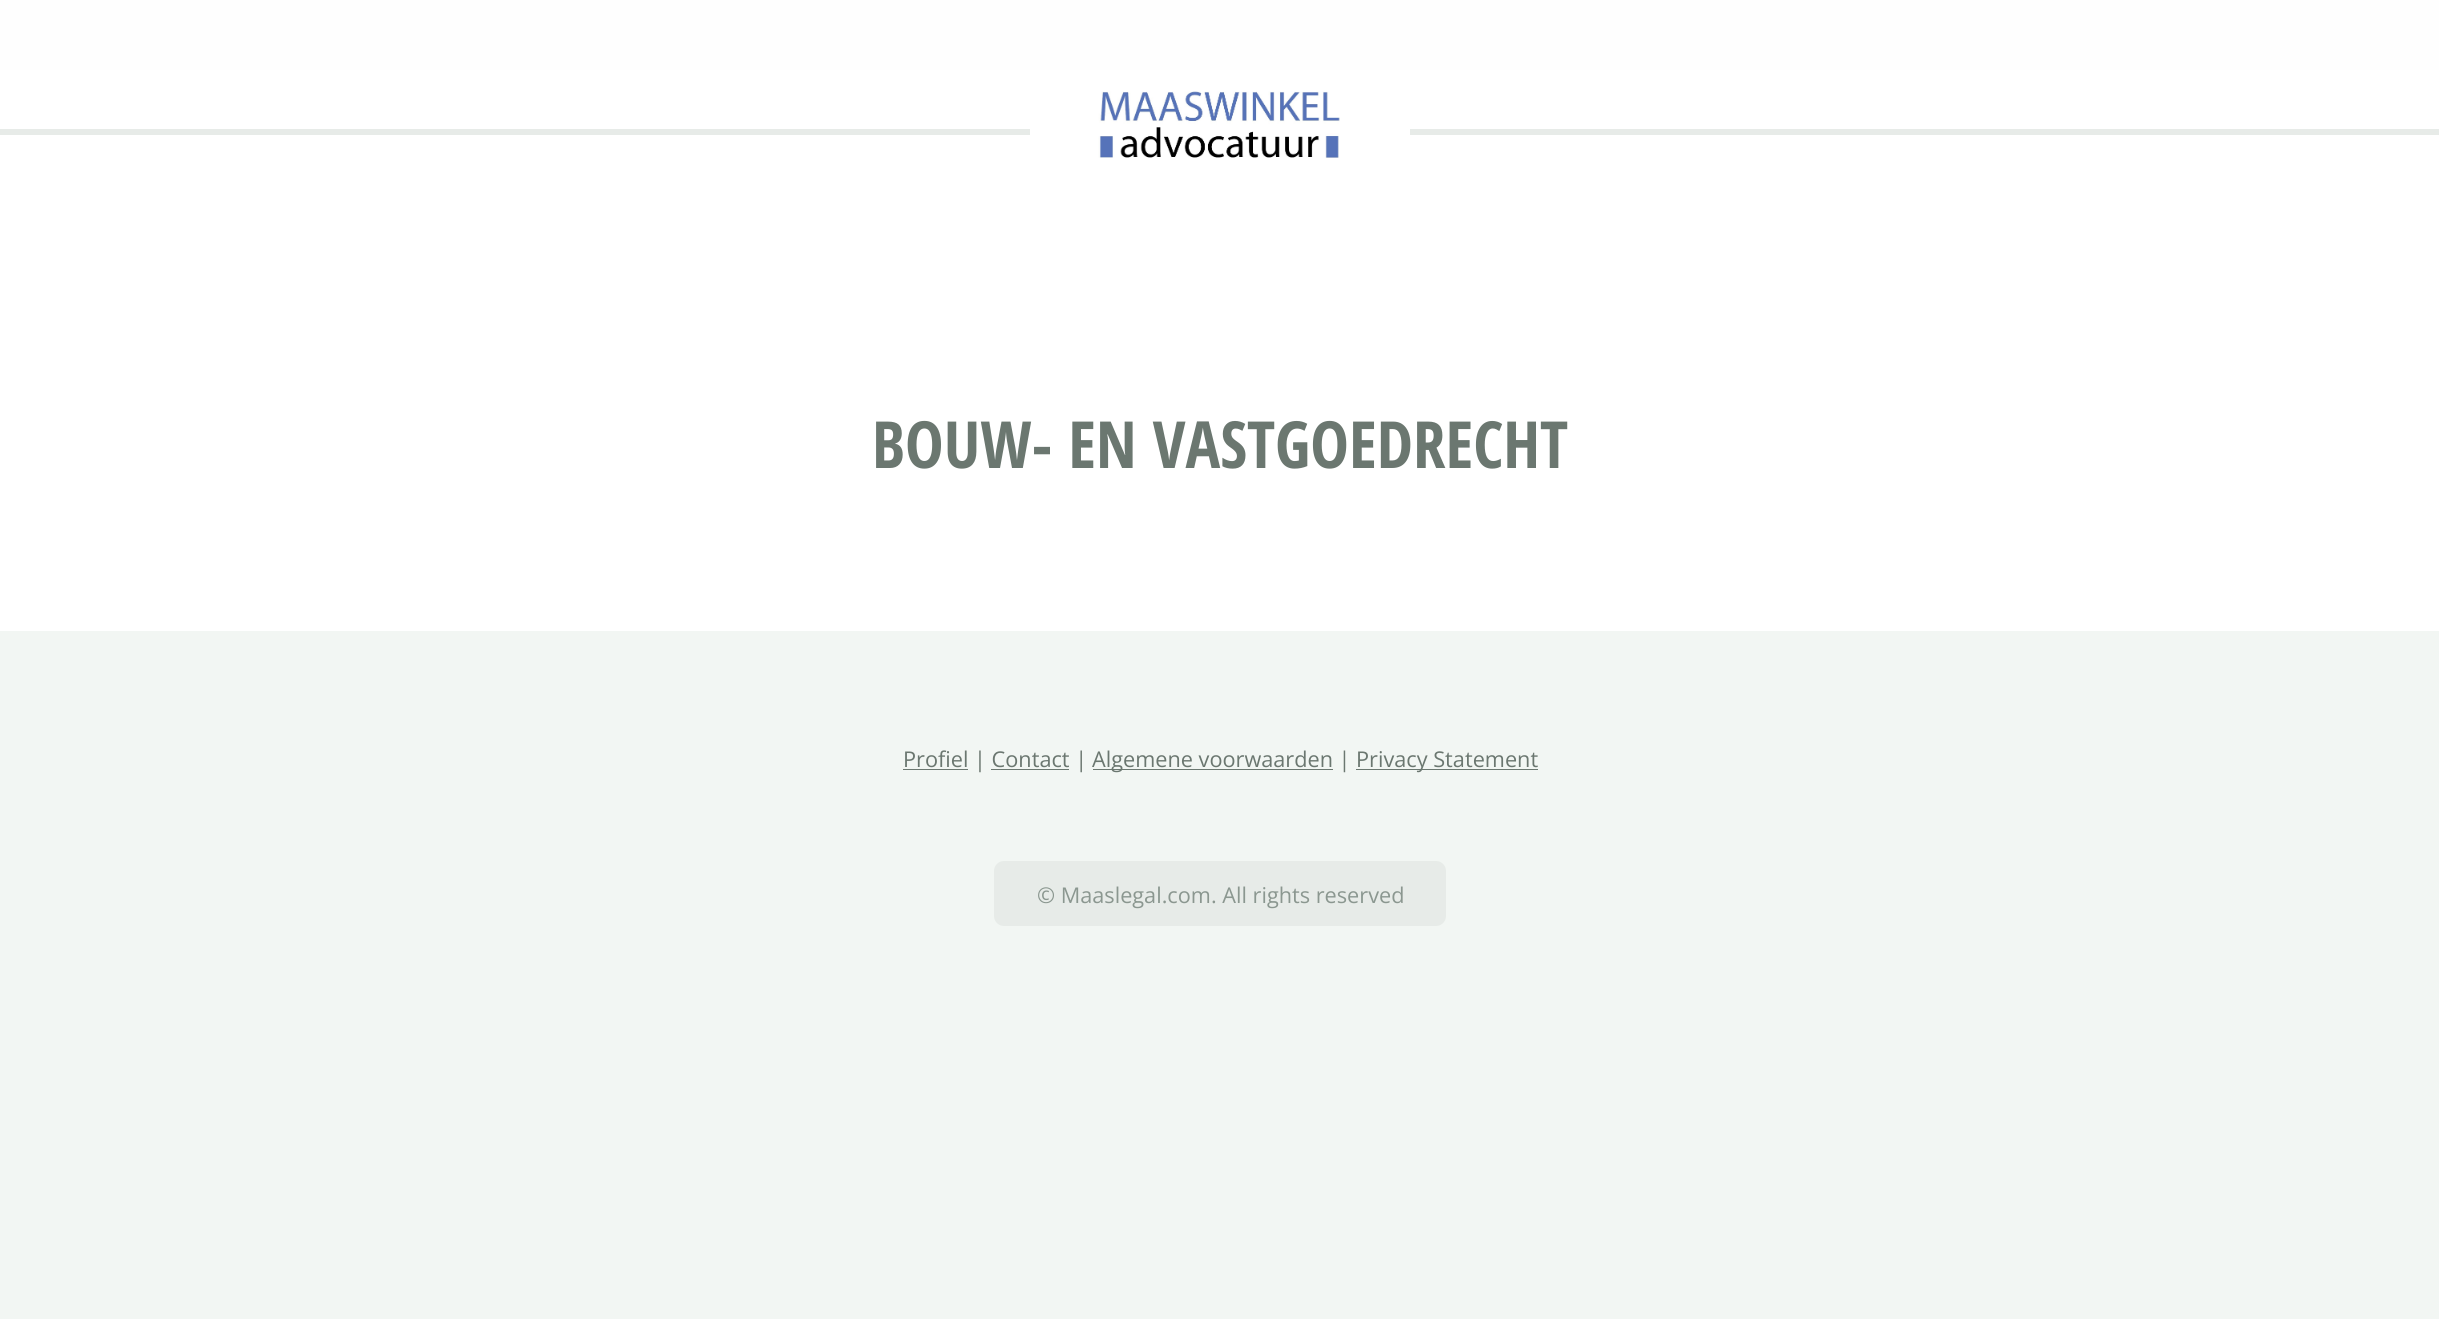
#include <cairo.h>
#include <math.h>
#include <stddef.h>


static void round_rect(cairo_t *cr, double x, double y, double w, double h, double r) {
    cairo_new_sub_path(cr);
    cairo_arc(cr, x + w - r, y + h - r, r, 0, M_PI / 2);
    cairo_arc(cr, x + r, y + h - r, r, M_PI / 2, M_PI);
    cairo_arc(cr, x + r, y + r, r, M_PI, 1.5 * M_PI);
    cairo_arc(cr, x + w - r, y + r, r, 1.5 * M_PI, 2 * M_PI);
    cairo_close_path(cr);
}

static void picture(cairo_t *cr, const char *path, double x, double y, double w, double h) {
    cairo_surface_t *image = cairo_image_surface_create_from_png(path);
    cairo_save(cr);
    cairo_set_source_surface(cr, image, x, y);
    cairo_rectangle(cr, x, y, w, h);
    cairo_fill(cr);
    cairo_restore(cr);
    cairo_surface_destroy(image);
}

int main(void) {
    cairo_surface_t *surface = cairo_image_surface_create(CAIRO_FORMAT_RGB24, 2439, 1319);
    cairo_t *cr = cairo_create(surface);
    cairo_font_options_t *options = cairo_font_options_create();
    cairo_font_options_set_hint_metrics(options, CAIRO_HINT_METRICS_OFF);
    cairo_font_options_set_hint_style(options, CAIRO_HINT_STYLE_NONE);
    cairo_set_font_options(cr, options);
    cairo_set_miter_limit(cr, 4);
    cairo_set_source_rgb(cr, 0.949, 0.961, 0.953);
    cairo_paint(cr);
    cairo_set_source_rgb(cr, 0.996, 0.996, 0.996);
    cairo_rectangle(cr, 0, 0, 2439, 70);
    cairo_fill(cr);
    cairo_set_source_rgb(cr, 1, 1, 1);
    cairo_rectangle(cr, 0, 70, 2439, 561);
    cairo_fill(cr);
    cairo_set_source_rgb(cr, 0.906, 0.918, 0.91);
    cairo_rectangle(cr, 0, 129, 2439, 6);
    cairo_fill(cr);
    cairo_set_source_rgb(cr, 1, 1, 1);
    cairo_rectangle(cr, 1030, 129, 380, 6);
    cairo_fill(cr);
    picture(cr, "img1.png", 1098, 91, 242, 67);
    cairo_select_font_face(cr, "Open Sans Condensed", CAIRO_FONT_SLANT_NORMAL, CAIRO_FONT_WEIGHT_BOLD);
    cairo_set_font_size(cr, 65);
    cairo_set_source_rgb(cr, 0.42, 0.467, 0.439);
    cairo_move_to(cr, 872, 468);
    cairo_show_text(cr, "BOUW- EN VASTGOEDRECHT");
    cairo_rectangle(cr, 903, 769, 65, 1);
    cairo_fill(cr);
    cairo_select_font_face(cr, "Open Sans", CAIRO_FONT_SLANT_NORMAL, CAIRO_FONT_WEIGHT_NORMAL);
    cairo_set_font_size(cr, 21.7);
    cairo_move_to(cr, 903, 767);
    cairo_show_text(cr, "Profiel | Contact |");
    cairo_rectangle(cr, 1093, 769, 240, 1);
    cairo_fill(cr);
    cairo_move_to(cr, 1092, 767);
    cairo_show_text(cr, "Algemene voorwaarden |");
    cairo_rectangle(cr, 1356, 769, 182, 1);
    cairo_fill(cr);
    cairo_move_to(cr, 1356, 767);
    cairo_show_text(cr, "Privacy Statement");
    cairo_rectangle(cr, 991, 769, 78, 1);
    cairo_fill(cr);
    cairo_set_source_rgb(cr, 0.906, 0.918, 0.91);
    round_rect(cr, 994, 861, 452, 65, 10);
    cairo_fill(cr);
    cairo_set_source_rgb(cr, 0.545, 0.592, 0.565);
    cairo_move_to(cr, 1037, 903);
    cairo_show_text(cr, "© Maaslegal.com. All rights reserved");
    cairo_surface_write_to_png(surface, "page.png");
    cairo_font_options_destroy(options);
    cairo_destroy(cr);
    cairo_surface_destroy(surface);
    return 0;
}
